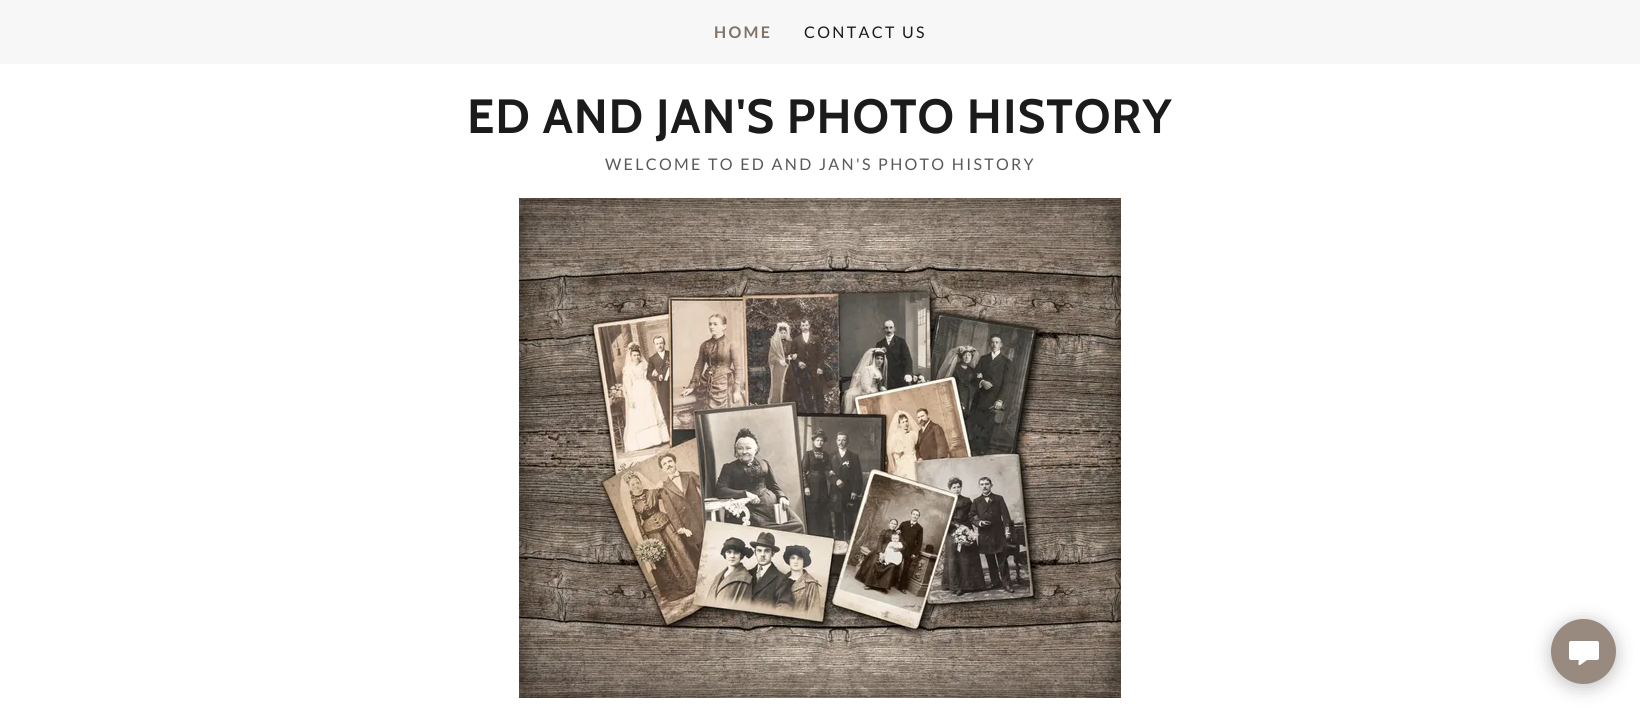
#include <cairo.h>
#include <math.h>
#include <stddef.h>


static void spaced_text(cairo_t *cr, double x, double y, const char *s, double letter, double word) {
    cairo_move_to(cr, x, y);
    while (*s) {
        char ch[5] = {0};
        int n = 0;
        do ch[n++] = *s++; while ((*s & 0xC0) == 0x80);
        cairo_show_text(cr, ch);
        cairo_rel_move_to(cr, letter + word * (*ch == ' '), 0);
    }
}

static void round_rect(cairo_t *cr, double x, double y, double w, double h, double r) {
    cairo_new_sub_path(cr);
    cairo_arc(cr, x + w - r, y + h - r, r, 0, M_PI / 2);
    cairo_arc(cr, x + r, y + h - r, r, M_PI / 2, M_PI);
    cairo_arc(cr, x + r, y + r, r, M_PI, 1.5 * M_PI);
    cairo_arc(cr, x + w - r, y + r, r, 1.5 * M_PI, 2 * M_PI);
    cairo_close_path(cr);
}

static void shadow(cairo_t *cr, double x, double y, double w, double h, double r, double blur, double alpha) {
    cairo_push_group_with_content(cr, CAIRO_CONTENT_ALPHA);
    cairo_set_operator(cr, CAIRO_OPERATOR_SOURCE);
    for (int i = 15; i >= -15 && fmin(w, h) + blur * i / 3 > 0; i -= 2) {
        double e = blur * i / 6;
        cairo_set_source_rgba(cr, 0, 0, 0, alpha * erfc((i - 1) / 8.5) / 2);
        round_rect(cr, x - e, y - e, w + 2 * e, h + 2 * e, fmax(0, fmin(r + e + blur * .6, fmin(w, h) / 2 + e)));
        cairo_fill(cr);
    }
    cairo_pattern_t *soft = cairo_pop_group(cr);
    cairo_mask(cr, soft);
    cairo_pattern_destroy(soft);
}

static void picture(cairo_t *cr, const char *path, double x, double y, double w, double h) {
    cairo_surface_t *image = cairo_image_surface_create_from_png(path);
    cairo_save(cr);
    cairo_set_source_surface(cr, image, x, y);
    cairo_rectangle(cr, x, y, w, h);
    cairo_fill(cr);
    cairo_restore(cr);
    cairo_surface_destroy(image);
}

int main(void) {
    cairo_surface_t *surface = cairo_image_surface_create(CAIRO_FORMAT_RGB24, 1640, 708);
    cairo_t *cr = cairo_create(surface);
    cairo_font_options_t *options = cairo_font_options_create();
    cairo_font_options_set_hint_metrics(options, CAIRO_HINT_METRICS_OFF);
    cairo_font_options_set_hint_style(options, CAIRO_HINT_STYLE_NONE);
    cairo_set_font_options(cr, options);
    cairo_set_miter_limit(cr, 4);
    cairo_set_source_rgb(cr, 1, 1, 1);
    cairo_paint(cr);
    cairo_set_source_rgb(cr, 0.965, 0.965, 0.965);
    cairo_rectangle(cr, 0, 0, 1640, 64);
    cairo_fill(cr);
    cairo_select_font_face(cr, "Lato", CAIRO_FONT_SLANT_NORMAL, CAIRO_FONT_WEIGHT_BOLD);
    cairo_set_font_size(cr, 16);
    cairo_set_source_rgb(cr, 0.51, 0.451, 0.404);
    spaced_text(cr, 714, 38, "HOME", 2.3, 0);
    cairo_select_font_face(cr, "Lato", CAIRO_FONT_SLANT_NORMAL, CAIRO_FONT_WEIGHT_NORMAL);
    cairo_set_source_rgb(cr, 0.106, 0.106, 0.106);
    spaced_text(cr, 804, 38, "CONTACT US", 2.3, 0);
    cairo_select_font_face(cr, "Cabin", CAIRO_FONT_SLANT_NORMAL, CAIRO_FONT_WEIGHT_BOLD);
    cairo_set_font_size(cr, 48);
    spaced_text(cr, 467, 133, "ED AND JAN'S PHOTO HISTORY", 1, 0);
    cairo_select_font_face(cr, "Lato", CAIRO_FONT_SLANT_NORMAL, CAIRO_FONT_WEIGHT_NORMAL);
    cairo_set_font_size(cr, 16);
    cairo_set_source_rgb(cr, 0.349, 0.349, 0.349);
    spaced_text(cr, 605, 170, "WELCOME TO ED AND JAN'S PHOTO HISTORY", 2.3, 0);
    picture(cr, "img1.png", 519, 198, 602, 500);
    cairo_set_source_rgb(cr, 0, 0, 0);
    shadow(cr, 1551, 622, 65, 65, 32.5, 9, 0.25);
    cairo_set_source_rgb(cr, 0.596, 0.541, 0.494);
    cairo_arc(cr, 1583.5, 651.5, 32.5, 0, 2 * M_PI);
    cairo_fill(cr);
    picture(cr, "img2.png", 1569, 641, 30, 25);
    cairo_surface_write_to_png(surface, "page.png");
    cairo_font_options_destroy(options);
    cairo_destroy(cr);
    cairo_surface_destroy(surface);
    return 0;
}
